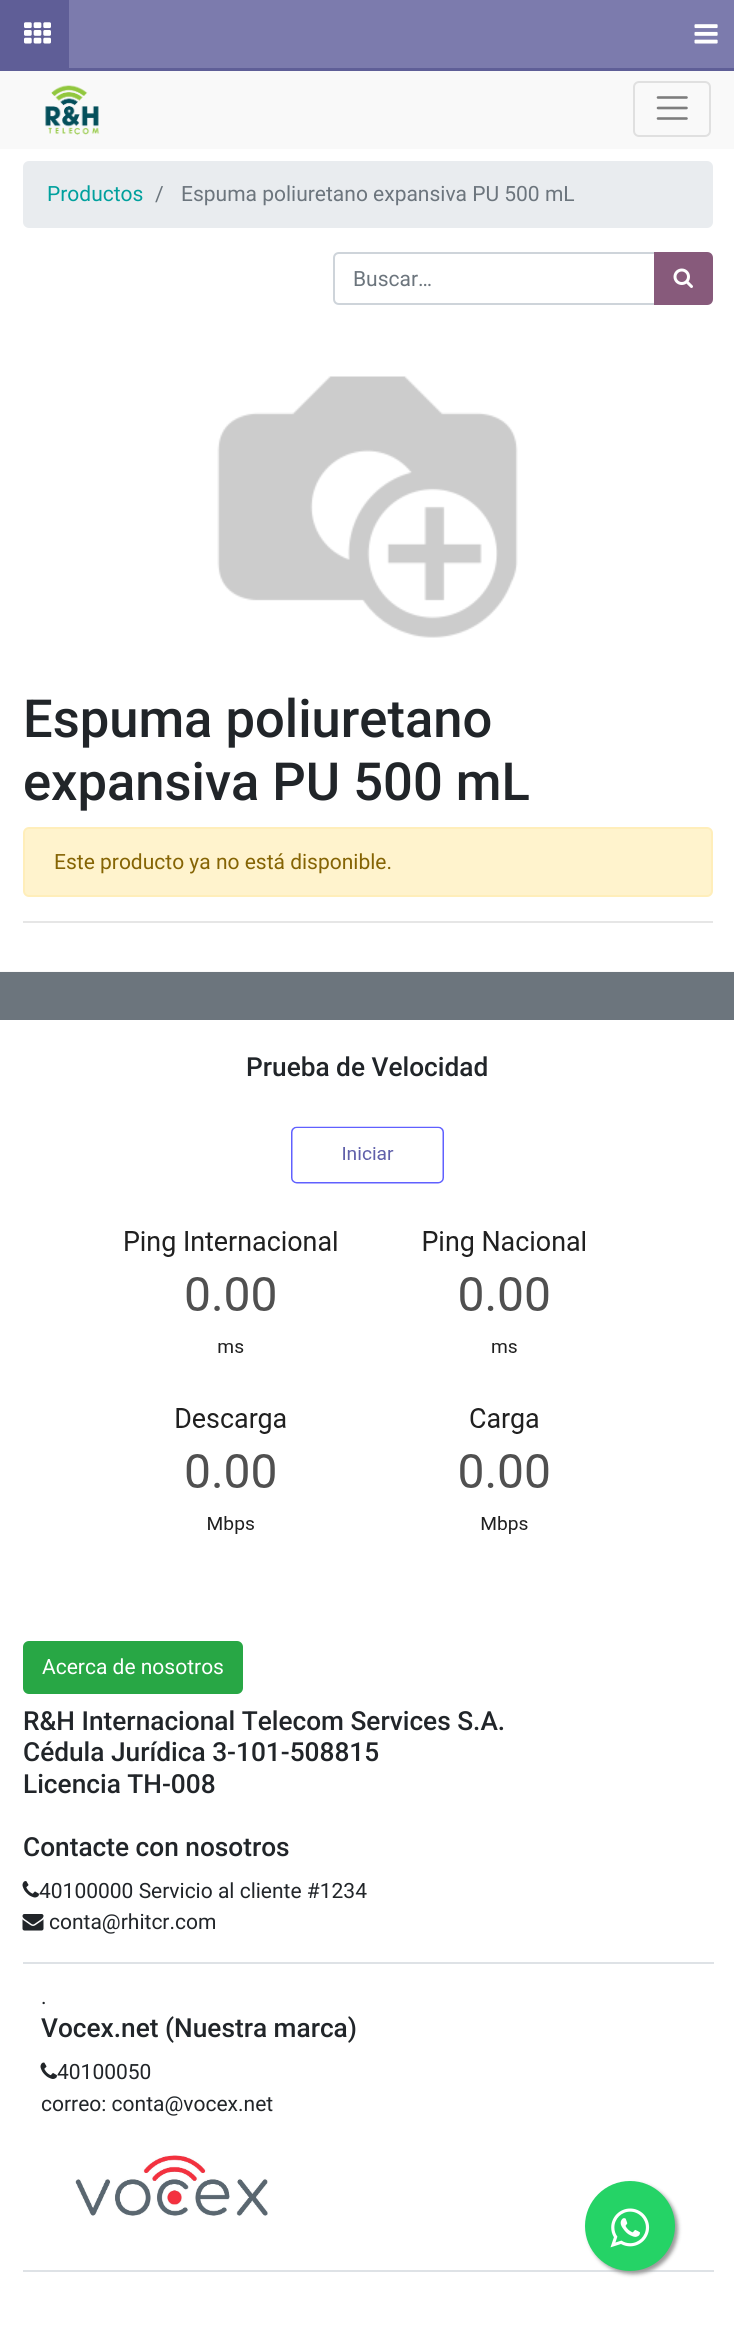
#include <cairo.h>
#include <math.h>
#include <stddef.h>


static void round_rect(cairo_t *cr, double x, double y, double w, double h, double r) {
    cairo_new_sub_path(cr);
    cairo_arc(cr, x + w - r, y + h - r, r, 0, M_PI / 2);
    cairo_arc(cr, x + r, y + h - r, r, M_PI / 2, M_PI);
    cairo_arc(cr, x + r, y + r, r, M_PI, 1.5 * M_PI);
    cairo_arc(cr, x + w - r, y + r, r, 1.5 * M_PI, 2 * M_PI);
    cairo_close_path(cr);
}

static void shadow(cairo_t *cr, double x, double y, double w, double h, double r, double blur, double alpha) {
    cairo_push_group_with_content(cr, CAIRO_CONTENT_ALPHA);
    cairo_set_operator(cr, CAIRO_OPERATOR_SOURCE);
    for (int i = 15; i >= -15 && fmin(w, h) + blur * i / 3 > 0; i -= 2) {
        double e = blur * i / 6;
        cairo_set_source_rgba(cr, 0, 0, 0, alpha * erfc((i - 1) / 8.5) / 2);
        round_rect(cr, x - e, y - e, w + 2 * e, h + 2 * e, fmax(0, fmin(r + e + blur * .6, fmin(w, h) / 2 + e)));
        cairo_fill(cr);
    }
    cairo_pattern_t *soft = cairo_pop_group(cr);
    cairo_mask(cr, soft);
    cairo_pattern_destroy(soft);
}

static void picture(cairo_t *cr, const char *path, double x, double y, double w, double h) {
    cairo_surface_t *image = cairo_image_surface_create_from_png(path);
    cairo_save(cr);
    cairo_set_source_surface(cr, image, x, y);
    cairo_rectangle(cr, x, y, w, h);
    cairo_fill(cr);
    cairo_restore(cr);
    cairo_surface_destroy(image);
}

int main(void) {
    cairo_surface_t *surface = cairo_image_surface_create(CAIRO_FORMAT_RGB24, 734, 2331);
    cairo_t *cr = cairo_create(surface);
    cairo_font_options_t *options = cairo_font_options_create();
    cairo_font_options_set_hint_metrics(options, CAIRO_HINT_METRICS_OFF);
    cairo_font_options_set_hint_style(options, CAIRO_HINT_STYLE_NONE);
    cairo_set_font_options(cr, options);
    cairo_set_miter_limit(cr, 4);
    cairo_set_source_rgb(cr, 1, 1, 1);
    cairo_paint(cr);
    cairo_set_source_rgb(cr, 0.486, 0.482, 0.678);
    cairo_rectangle(cr, 69, 0, 665, 68);
    cairo_fill(cr);
    cairo_set_source_rgb(cr, 0.373, 0.369, 0.592);
    cairo_rectangle(cr, 69, 68, 665, 1);
    cairo_fill(cr);
    cairo_rectangle(cr, 0, 0, 69, 69);
    cairo_fill(cr);
    picture(cr, "img1.png", 24, 22, 27, 22);
    picture(cr, "img2.png", 694, 24, 24, 20);
    cairo_rectangle(cr, 0, 69, 734, 2);
    cairo_fill(cr);
    cairo_set_source_rgb(cr, 0.976, 0.976, 0.976);
    cairo_rectangle(cr, 0, 71, 734, 78);
    cairo_fill(cr);
    picture(cr, "img3.png", 45, 85, 55, 50);
    round_rect(cr, 634, 82, 76, 54, 5);
    cairo_set_source_rgb(cr, 0.878, 0.878, 0.878);
    cairo_stroke(cr);
    cairo_new_path(cr);
    cairo_move_to(cr, 658, 97.5);
    cairo_line_to(cr, 686.5, 97.5);
    cairo_move_to(cr, 658, 108);
    cairo_line_to(cr, 686.5, 108);
    cairo_move_to(cr, 658, 118.5);
    cairo_line_to(cr, 686.5, 118.5);
    cairo_set_source_rgb(cr, 0.49, 0.49, 0.49);
    cairo_set_line_width(cr, 2.6);
    cairo_set_line_cap(cr, CAIRO_LINE_CAP_ROUND);
    cairo_stroke(cr);
    cairo_set_source_rgb(cr, 0.914, 0.925, 0.937);
    round_rect(cr, 23, 161, 690, 67, 6);
    cairo_fill(cr);
    cairo_select_font_face(cr, "Roboto", CAIRO_FONT_SLANT_NORMAL, CAIRO_FONT_WEIGHT_NORMAL);
    cairo_set_font_size(cr, 21);
    cairo_set_source_rgb(cr, 0, 0.627, 0.616);
    cairo_move_to(cr, 47, 201);
    cairo_show_text(cr, "Productos");
    cairo_set_source_rgb(cr, 0.424, 0.459, 0.49);
    cairo_move_to(cr, 155, 201);
    cairo_show_text(cr, "/");
    cairo_move_to(cr, 181, 201);
    cairo_show_text(cr, "Espuma poliuretano expansiva PU 500 mL");
    cairo_new_path(cr);
    cairo_move_to(cr, 339, 253);
    cairo_line_to(cr, 655, 253);
    cairo_line_to(cr, 655, 304);
    cairo_line_to(cr, 339, 304);
    cairo_curve_to(cr, 336, 304, 334, 302, 334, 299);
    cairo_line_to(cr, 334, 258);
    cairo_curve_to(cr, 334, 255, 336, 253, 339, 253);
    cairo_close_path(cr);
    cairo_set_source_rgb(cr, 0.808, 0.831, 0.855);
    cairo_set_line_width(cr, 2);
    cairo_set_line_cap(cr, CAIRO_LINE_CAP_BUTT);
    cairo_stroke(cr);
    cairo_set_source_rgb(cr, 0.424, 0.459, 0.49);
    cairo_move_to(cr, 353, 286);
    cairo_show_text(cr, "Buscar…");
    cairo_set_source_rgb(cr, 0.529, 0.353, 0.482);
    cairo_new_path(cr);
    cairo_move_to(cr, 655, 253);
    cairo_line_to(cr, 707, 253);
    cairo_curve_to(cr, 710, 253, 712, 255, 712, 258);
    cairo_line_to(cr, 712, 299);
    cairo_curve_to(cr, 712, 302, 710, 304, 707, 304);
    cairo_line_to(cr, 655, 304);
    cairo_close_path(cr);
    cairo_fill_preserve(cr);
    cairo_stroke(cr);
    picture(cr, "img4.png", 673, 268, 20, 20);
    picture(cr, "img5.png", 217, 376, 301, 262);
    cairo_select_font_face(cr, "Roboto Medium", CAIRO_FONT_SLANT_NORMAL, CAIRO_FONT_WEIGHT_NORMAL);
    cairo_set_font_size(cr, 52.5);
    cairo_set_source_rgb(cr, 0.129, 0.145, 0.161);
    cairo_move_to(cr, 23, 737);
    cairo_show_text(cr, "Espuma poliuretano");
    cairo_move_to(cr, 23, 800);
    cairo_show_text(cr, "expansiva PU 500 mL");
    cairo_set_source_rgb(cr, 1, 0.953, 0.804);
    round_rect(cr, 24, 828, 688, 68, 5);
    cairo_fill_preserve(cr);
    cairo_set_source_rgb(cr, 1, 0.933, 0.729);
    cairo_stroke(cr);
    cairo_select_font_face(cr, "Roboto", CAIRO_FONT_SLANT_NORMAL, CAIRO_FONT_WEIGHT_NORMAL);
    cairo_set_font_size(cr, 21);
    cairo_set_source_rgb(cr, 0.522, 0.392, 0.016);
    cairo_move_to(cr, 54, 869);
    cairo_show_text(cr, "Este producto ya no está disponible.");
    cairo_set_source_rgb(cr, 0.902, 0.902, 0.902);
    cairo_rectangle(cr, 23, 921, 690, 2);
    cairo_fill(cr);
    cairo_set_source_rgb(cr, 0.976, 0.976, 0.976);
    cairo_rectangle(cr, 0, 971, 734, 1);
    cairo_fill(cr);
    cairo_set_source_rgb(cr, 0.424, 0.459, 0.49);
    cairo_rectangle(cr, 0, 972, 734, 48);
    cairo_fill(cr);
    cairo_select_font_face(cr, "Roboto Medium", CAIRO_FONT_SLANT_NORMAL, CAIRO_FONT_WEIGHT_NORMAL);
    cairo_set_font_size(cr, 26.25);
    cairo_set_source_rgb(cr, 0.129, 0.145, 0.161);
    cairo_move_to(cr, 246, 1076);
    cairo_show_text(cr, "Prueba de Velocidad");
    picture(cr, "img6.png", 125, 1126, 460, 408);
    cairo_set_source_rgb(cr, 0.157, 0.655, 0.271);
    round_rect(cr, 24, 1642, 218, 51, 5);
    cairo_fill_preserve(cr);
    cairo_stroke(cr);
    cairo_select_font_face(cr, "Roboto", CAIRO_FONT_SLANT_NORMAL, CAIRO_FONT_WEIGHT_NORMAL);
    cairo_set_font_size(cr, 21);
    cairo_set_source_rgb(cr, 1, 1, 1);
    cairo_move_to(cr, 42, 1674);
    cairo_show_text(cr, "Acerca de nosotros");
    cairo_select_font_face(cr, "Roboto Medium", CAIRO_FONT_SLANT_NORMAL, CAIRO_FONT_WEIGHT_NORMAL);
    cairo_set_font_size(cr, 26.25);
    cairo_set_source_rgb(cr, 0.129, 0.145, 0.161);
    cairo_move_to(cr, 23, 1730);
    cairo_show_text(cr, "R&H Internacional Telecom Services S.A.");
    cairo_move_to(cr, 23, 1761);
    cairo_show_text(cr, "Cédula Jurídica 3-101-508815");
    cairo_move_to(cr, 23, 1793);
    cairo_show_text(cr, "Licencia TH-008");
    cairo_move_to(cr, 23, 1856);
    cairo_show_text(cr, "Contacte con nosotros");
    picture(cr, "img7.png", 22, 1881, 17, 17);
    cairo_select_font_face(cr, "Roboto", CAIRO_FONT_SLANT_NORMAL, CAIRO_FONT_WEIGHT_NORMAL);
    cairo_set_font_size(cr, 21);
    cairo_move_to(cr, 39, 1898);
    cairo_show_text(cr, "40100000 Servicio al cliente #1234");
    picture(cr, "img8.png", 22, 1914, 22, 17);
    cairo_move_to(cr, 49, 1929);
    cairo_show_text(cr, "conta@rhitcr.com");
    cairo_set_source_rgb(cr, 0.871, 0.886, 0.902);
    cairo_rectangle(cr, 23, 1962, 691, 2);
    cairo_fill(cr);
    cairo_set_source_rgb(cr, 0.129, 0.145, 0.161);
    cairo_move_to(cr, 41, 2004);
    cairo_show_text(cr, ".");
    cairo_select_font_face(cr, "Roboto Medium", CAIRO_FONT_SLANT_NORMAL, CAIRO_FONT_WEIGHT_NORMAL);
    cairo_set_font_size(cr, 26.25);
    cairo_move_to(cr, 41, 2037);
    cairo_show_text(cr, "Vocex.net (Nuestra marca)");
    picture(cr, "img9.png", 40, 2062, 17, 17);
    cairo_select_font_face(cr, "Roboto", CAIRO_FONT_SLANT_NORMAL, CAIRO_FONT_WEIGHT_NORMAL);
    cairo_set_font_size(cr, 21);
    cairo_move_to(cr, 57, 2079);
    cairo_show_text(cr, "40100050");
    cairo_move_to(cr, 41, 2111);
    cairo_show_text(cr, "correo: conta@vocex.net");
    picture(cr, "img10.png", 41, 2155, 262, 61);
    cairo_set_source_rgb(cr, 0.871, 0.886, 0.902);
    cairo_rectangle(cr, 23, 2270, 691, 2);
    cairo_fill(cr);
    cairo_set_source_rgb(cr, 0.6, 0.6, 0.6);
    shadow(cr, 588, 2184, 90, 90, 45, 2, 1);
    cairo_set_source_rgb(cr, 0.145, 0.827, 0.4);
    cairo_arc(cr, 630, 2226, 45, 0, 2 * M_PI);
    cairo_fill(cr);
    picture(cr, "img11.png", 610, 2208, 40, 40);
    cairo_surface_write_to_png(surface, "page.png");
    cairo_font_options_destroy(options);
    cairo_destroy(cr);
    cairo_surface_destroy(surface);
    return 0;
}
